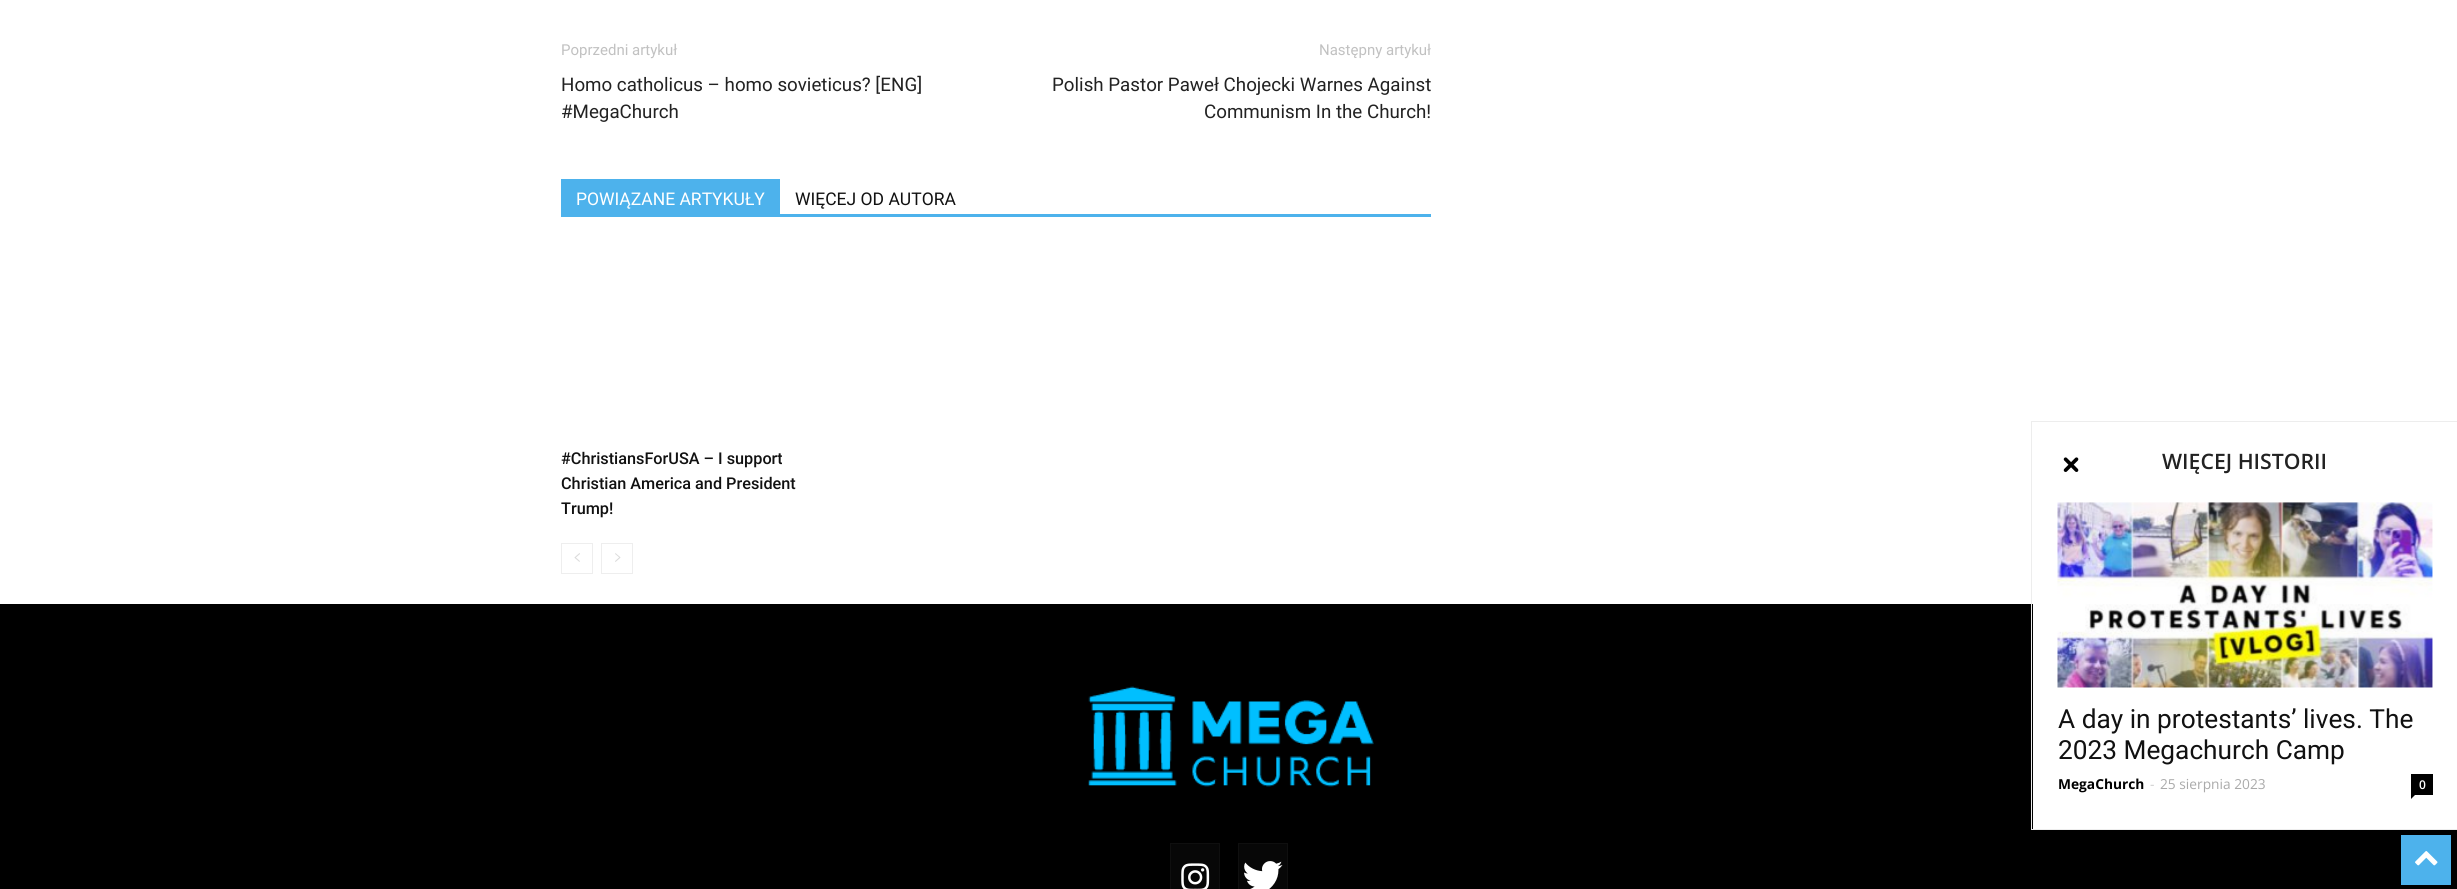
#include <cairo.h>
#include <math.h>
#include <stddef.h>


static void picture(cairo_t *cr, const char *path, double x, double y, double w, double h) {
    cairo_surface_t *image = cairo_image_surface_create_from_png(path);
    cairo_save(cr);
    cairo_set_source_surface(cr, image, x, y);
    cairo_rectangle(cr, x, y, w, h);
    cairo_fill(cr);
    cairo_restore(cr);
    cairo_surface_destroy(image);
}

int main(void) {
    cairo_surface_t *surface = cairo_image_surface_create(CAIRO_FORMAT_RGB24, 2457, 889);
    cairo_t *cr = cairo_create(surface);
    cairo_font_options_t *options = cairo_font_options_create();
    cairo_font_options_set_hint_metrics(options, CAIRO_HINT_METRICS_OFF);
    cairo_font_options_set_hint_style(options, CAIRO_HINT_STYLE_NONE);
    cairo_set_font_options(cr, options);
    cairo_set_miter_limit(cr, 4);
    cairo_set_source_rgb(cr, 1, 1, 1);
    cairo_paint(cr);
    cairo_select_font_face(cr, "Roboto", CAIRO_FONT_SLANT_NORMAL, CAIRO_FONT_WEIGHT_NORMAL);
    cairo_set_font_size(cr, 15);
    cairo_set_source_rgb(cr, 0.757, 0.757, 0.757);
    cairo_move_to(cr, 561, 55);
    cairo_show_text(cr, "Poprzedni artykuł");
    cairo_set_font_size(cr, 18.75);
    cairo_set_source_rgb(cr, 0.133, 0.133, 0.133);
    cairo_move_to(cr, 561, 91);
    cairo_show_text(cr, "Homo catholicus – homo sovieticus? [ENG]");
    cairo_move_to(cr, 561, 118);
    cairo_show_text(cr, "#MegaChurch");
    cairo_set_font_size(cr, 15);
    cairo_set_source_rgb(cr, 0.757, 0.757, 0.757);
    cairo_move_to(cr, 1319, 55);
    cairo_show_text(cr, "Następny artykuł");
    cairo_set_font_size(cr, 18.75);
    cairo_set_source_rgb(cr, 0.133, 0.133, 0.133);
    cairo_move_to(cr, 1052, 91);
    cairo_show_text(cr, "Polish Pastor Paweł Chojecki Warnes Against");
    cairo_move_to(cr, 1204, 118);
    cairo_show_text(cr, "Communism In the Church!");
    cairo_set_source_rgb(cr, 0.302, 0.698, 0.925);
    cairo_rectangle(cr, 561, 214, 870, 3);
    cairo_fill(cr);
    cairo_rectangle(cr, 561, 179, 219, 35);
    cairo_fill(cr);
    cairo_set_font_size(cr, 17.5);
    cairo_set_source_rgb(cr, 1, 1, 1);
    cairo_move_to(cr, 576, 205);
    cairo_show_text(cr, "POWIĄZANE ARTYKUŁY");
    cairo_set_source_rgb(cr, 0.067, 0.067, 0.067);
    cairo_move_to(cr, 795, 205);
    cairo_show_text(cr, "WIĘCEJ OD AUTORA");
    cairo_select_font_face(cr, "Roboto Medium", CAIRO_FONT_SLANT_NORMAL, CAIRO_FONT_WEIGHT_NORMAL);
    cairo_set_font_size(cr, 16.25);
    cairo_move_to(cr, 561, 464);
    cairo_show_text(cr, "#ChristiansForUSA – I support");
    cairo_move_to(cr, 561, 489);
    cairo_show_text(cr, "Christian America and President");
    cairo_move_to(cr, 561, 514);
    cairo_show_text(cr, "Trump!");
    cairo_rectangle(cr, 561.5, 543.5, 31, 30);
    cairo_set_source_rgb(cr, 0.933, 0.933, 0.933);
    cairo_set_line_width(cr, 1);
    cairo_stroke(cr);
    picture(cr, "img1.png", 574, 553, 6, 9);
    cairo_rectangle(cr, 601.5, 543.5, 31, 30);
    cairo_stroke(cr);
    picture(cr, "img2.png", 615, 553, 6, 9);
    cairo_set_source_rgb(cr, 0, 0, 0);
    cairo_rectangle(cr, 0, 604, 2457, 285);
    cairo_fill(cr);
    picture(cr, "img3.png", 1088, 686, 286, 101);
    cairo_set_source_rgb(cr, 0.031, 0.031, 0.031);
    cairo_rectangle(cr, 1171, 844, 48, 45);
    cairo_fill(cr);
    picture(cr, "img4.png", 1181, 863, 29, 26);
    cairo_rectangle(cr, 1170.5, 843.5, 49, 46);
    cairo_set_source_rgb(cr, 0.059, 0.059, 0.059);
    cairo_stroke(cr);
    cairo_set_source_rgb(cr, 0.031, 0.031, 0.031);
    cairo_rectangle(cr, 1239, 844, 48, 45);
    cairo_fill(cr);
    picture(cr, "img5.png", 1244, 861, 39, 28);
    cairo_rectangle(cr, 1238.5, 843.5, 49, 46);
    cairo_set_source_rgb(cr, 0.059, 0.059, 0.059);
    cairo_stroke(cr);
    cairo_set_source_rgb(cr, 1, 1, 1);
    cairo_rectangle(cr, 2033, 604, 424, 225);
    cairo_fill(cr);
    cairo_set_source_rgb(cr, 0.929, 0.929, 0.929);
    cairo_rectangle(cr, 2031, 421, 426, 1);
    cairo_fill(cr);
    cairo_rectangle(cr, 2031, 829, 426, 1);
    cairo_fill(cr);
    cairo_rectangle(cr, 2031, 421, 1, 409);
    cairo_fill(cr);
    picture(cr, "img6.png", 2063, 457, 16, 15);
    cairo_select_font_face(cr, "Open Sans SemiBold", CAIRO_FONT_SLANT_NORMAL, CAIRO_FONT_WEIGHT_NORMAL);
    cairo_set_font_size(cr, 21.25);
    cairo_set_source_rgb(cr, 0.133, 0.133, 0.133);
    cairo_move_to(cr, 2162, 469);
    cairo_show_text(cr, "WIĘCEJ HISTORII");
    picture(cr, "img7.png", 2057, 502, 376, 186);
    cairo_select_font_face(cr, "Roboto", CAIRO_FONT_SLANT_NORMAL, CAIRO_FONT_WEIGHT_NORMAL);
    cairo_set_font_size(cr, 26.25);
    cairo_set_source_rgb(cr, 0.067, 0.067, 0.067);
    cairo_move_to(cr, 2058, 728);
    cairo_show_text(cr, "A day in protestants’ lives. The");
    cairo_move_to(cr, 2058, 759);
    cairo_show_text(cr, "2023 Megachurch Camp");
    cairo_select_font_face(cr, "Open Sans", CAIRO_FONT_SLANT_NORMAL, CAIRO_FONT_WEIGHT_BOLD);
    cairo_set_font_size(cr, 13.75);
    cairo_set_source_rgb(cr, 0, 0, 0);
    cairo_move_to(cr, 2058, 789);
    cairo_show_text(cr, "MegaChurch");
    cairo_select_font_face(cr, "Open Sans", CAIRO_FONT_SLANT_NORMAL, CAIRO_FONT_WEIGHT_NORMAL);
    cairo_set_source_rgb(cr, 0.8, 0.8, 0.8);
    cairo_move_to(cr, 2150, 789);
    cairo_show_text(cr, "-");
    cairo_set_source_rgb(cr, 0.667, 0.667, 0.667);
    cairo_move_to(cr, 2160, 789);
    cairo_show_text(cr, "25 sierpnia 2023");
    cairo_set_source_rgb(cr, 0, 0, 0);
    cairo_rectangle(cr, 2411, 774, 22, 21);
    cairo_fill(cr);
    cairo_select_font_face(cr, "Open Sans SemiBold", CAIRO_FONT_SLANT_NORMAL, CAIRO_FONT_WEIGHT_NORMAL);
    cairo_set_font_size(cr, 12);
    cairo_set_source_rgb(cr, 1, 1, 1);
    cairo_move_to(cr, 2419, 789);
    cairo_show_text(cr, "0");
    cairo_set_source_rgb(cr, 0, 0, 0);
    cairo_new_path(cr);
    cairo_move_to(cr, 2411, 795);
    cairo_line_to(cr, 2415, 795);
    cairo_line_to(cr, 2411, 799);
    cairo_close_path(cr);
    cairo_fill(cr);
    cairo_set_source_rgb(cr, 0.302, 0.698, 0.925);
    cairo_rectangle(cr, 2401, 835, 50, 50);
    cairo_fill(cr);
    picture(cr, "img8.png", 2415, 851, 23, 15);
    cairo_surface_write_to_png(surface, "page.png");
    cairo_font_options_destroy(options);
    cairo_destroy(cr);
    cairo_surface_destroy(surface);
    return 0;
}
